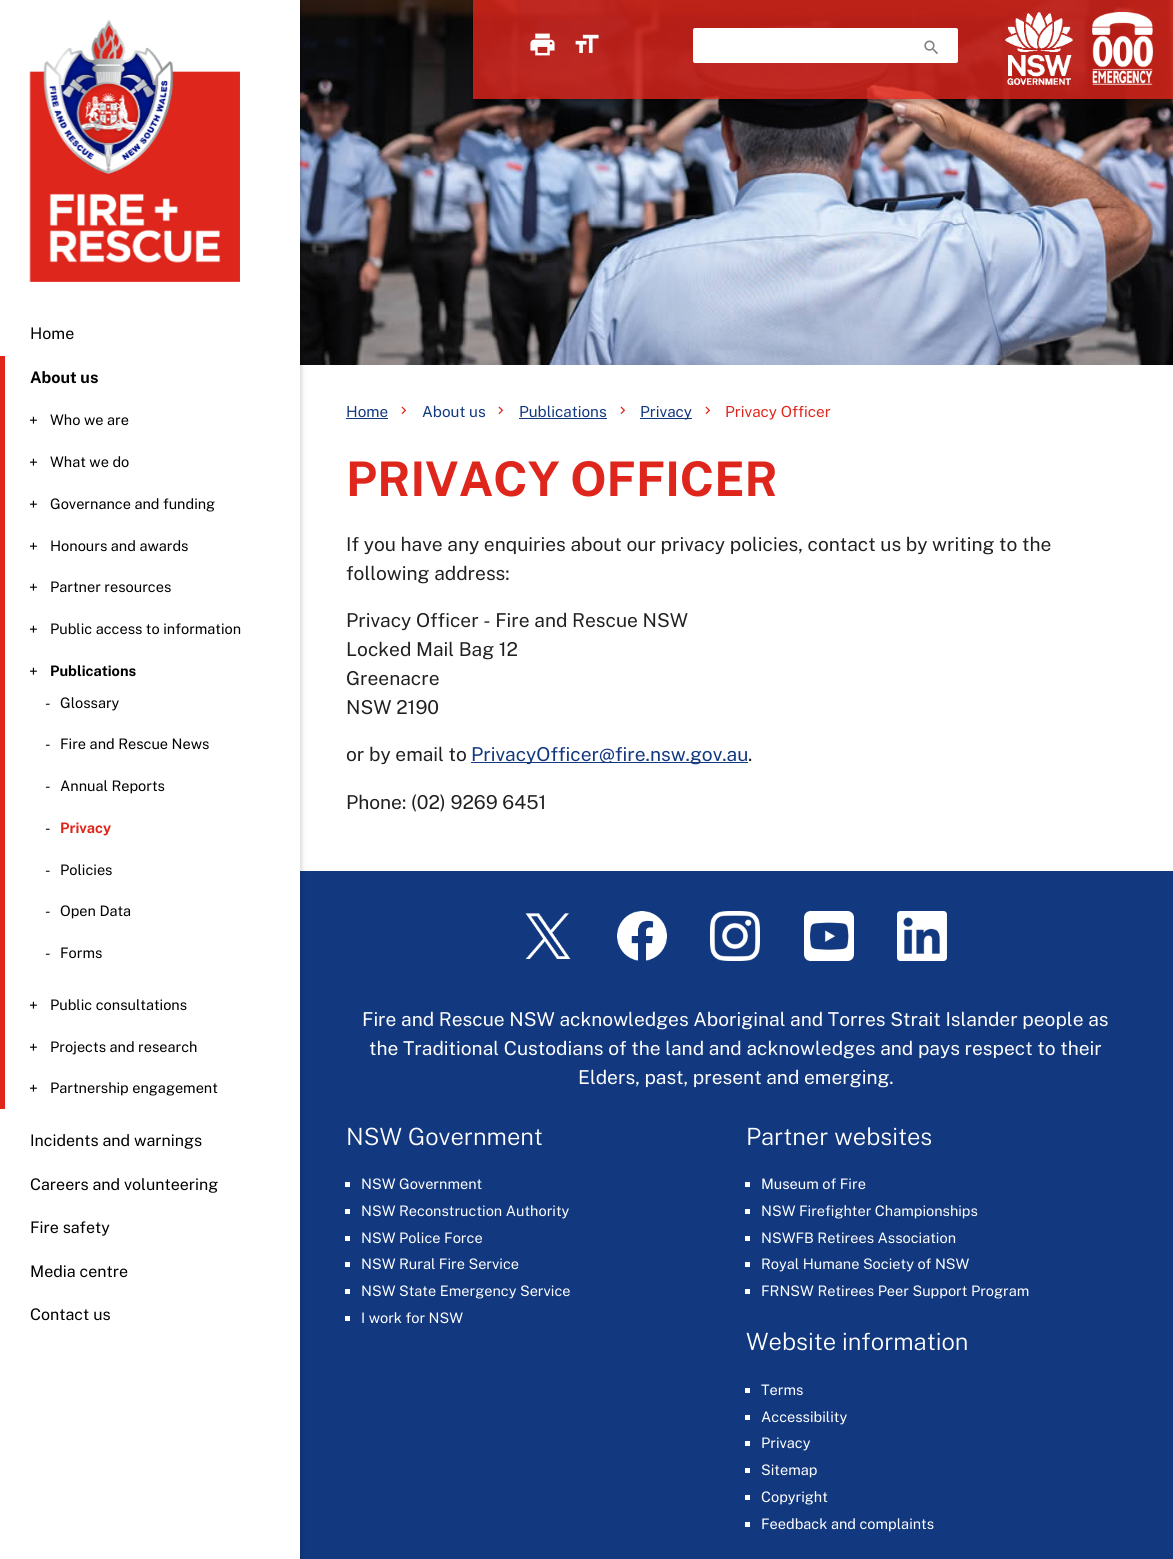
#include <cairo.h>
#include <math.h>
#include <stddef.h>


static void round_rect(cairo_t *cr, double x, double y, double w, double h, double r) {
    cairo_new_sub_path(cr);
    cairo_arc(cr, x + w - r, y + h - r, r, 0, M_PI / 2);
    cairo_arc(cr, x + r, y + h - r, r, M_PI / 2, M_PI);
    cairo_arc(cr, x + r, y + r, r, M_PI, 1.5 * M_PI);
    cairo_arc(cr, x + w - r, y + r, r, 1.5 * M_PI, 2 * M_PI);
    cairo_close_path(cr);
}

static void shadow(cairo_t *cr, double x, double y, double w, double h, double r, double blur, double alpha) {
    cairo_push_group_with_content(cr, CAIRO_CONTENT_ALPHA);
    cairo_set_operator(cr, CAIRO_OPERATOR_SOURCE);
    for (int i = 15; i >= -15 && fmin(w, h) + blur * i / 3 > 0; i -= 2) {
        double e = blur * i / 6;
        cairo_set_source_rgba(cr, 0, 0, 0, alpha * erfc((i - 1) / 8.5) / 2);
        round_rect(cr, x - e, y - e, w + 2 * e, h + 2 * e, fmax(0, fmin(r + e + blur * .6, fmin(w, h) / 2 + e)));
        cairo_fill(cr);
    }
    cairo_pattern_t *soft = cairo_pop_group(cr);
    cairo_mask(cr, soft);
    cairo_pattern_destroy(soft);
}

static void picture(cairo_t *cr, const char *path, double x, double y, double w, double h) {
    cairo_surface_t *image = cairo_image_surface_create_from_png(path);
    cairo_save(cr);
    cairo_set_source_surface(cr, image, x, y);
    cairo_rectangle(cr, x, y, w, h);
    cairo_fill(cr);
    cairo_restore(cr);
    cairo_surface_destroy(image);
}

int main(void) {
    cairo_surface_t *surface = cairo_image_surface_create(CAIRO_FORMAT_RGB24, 1173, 1559);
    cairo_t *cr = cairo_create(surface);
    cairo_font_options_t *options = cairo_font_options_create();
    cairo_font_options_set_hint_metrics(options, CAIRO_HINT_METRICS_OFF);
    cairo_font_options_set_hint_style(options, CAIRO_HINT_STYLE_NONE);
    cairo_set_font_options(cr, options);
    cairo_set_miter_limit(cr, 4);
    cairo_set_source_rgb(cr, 1, 1, 1);
    cairo_paint(cr);
    picture(cr, "img1.png", 300, 0, 873, 365);
    cairo_save(cr);
    cairo_set_fill_rule(cr, CAIRO_FILL_RULE_EVEN_ODD);
    cairo_new_path(cr);
    cairo_move_to(cr, 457, 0);
    cairo_line_to(cr, 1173, 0);
    cairo_line_to(cr, 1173, 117);
    cairo_line_to(cr, 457, 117);
    cairo_close_path(cr);
    cairo_move_to(cr, 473, 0);
    cairo_line_to(cr, 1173, 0);
    cairo_line_to(cr, 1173, 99);
    cairo_line_to(cr, 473, 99);
    cairo_close_path(cr);
    cairo_clip(cr);
    cairo_set_source_rgb(cr, 0, 0, 0);
    shadow(cr, 473, 2, 700, 99, 0, 5, 0.12);
    cairo_restore(cr);
    cairo_save(cr);
    cairo_set_fill_rule(cr, CAIRO_FILL_RULE_EVEN_ODD);
    cairo_new_path(cr);
    cairo_move_to(cr, 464, 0);
    cairo_line_to(cr, 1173, 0);
    cairo_line_to(cr, 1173, 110);
    cairo_line_to(cr, 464, 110);
    cairo_close_path(cr);
    cairo_move_to(cr, 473, 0);
    cairo_line_to(cr, 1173, 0);
    cairo_line_to(cr, 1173, 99);
    cairo_line_to(cr, 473, 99);
    cairo_close_path(cr);
    cairo_clip(cr);
    cairo_set_source_rgb(cr, 0, 0, 0);
    shadow(cr, 473, 2, 700, 99, 0, 2.5, 0.16);
    cairo_restore(cr);
    cairo_set_source_rgba(cr, 0.882, 0.145, 0.106, 0.8);
    cairo_rectangle(cr, 473, 0, 700, 99);
    cairo_fill(cr);
    picture(cr, "img2.png", 530, 33, 25, 23);
    picture(cr, "img3.png", 575, 34, 24, 19);
    cairo_set_source_rgb(cr, 1, 1, 1);
    round_rect(cr, 693, 28, 265, 35, 2);
    cairo_fill(cr);
    picture(cr, "img4.png", 924, 40, 14, 15);
    picture(cr, "img5.png", 1005, 12, 68, 73);
    picture(cr, "img6.png", 1092, 12, 61, 73);
    cairo_set_source_rgb(cr, 0.071, 0.22, 0.498);
    cairo_rectangle(cr, 300, 871, 873, 688);
    cairo_fill(cr);
    cairo_set_source_rgb(cr, 0, 0, 0);
    shadow(cr, 0, 2, 300, 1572, 0, 5, 0.12);
    shadow(cr, 0, 2, 300, 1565, 0, 2.5, 0.16);
    cairo_set_source_rgb(cr, 1, 1, 1);
    cairo_rectangle(cr, 0, 0, 300, 1559);
    cairo_fill(cr);
    picture(cr, "img7.png", 29, 20, 211, 262);
    cairo_select_font_face(cr, "Public Sans", CAIRO_FONT_SLANT_NORMAL, CAIRO_FONT_WEIGHT_NORMAL);
    cairo_set_font_size(cr, 16);
    cairo_set_source_rgb(cr, 0, 0, 0);
    cairo_move_to(cr, 30, 339);
    cairo_show_text(cr, "Home");
    cairo_set_source_rgb(cr, 0.882, 0.145, 0.106);
    cairo_rectangle(cr, 0, 356, 5, 753);
    cairo_fill(cr);
    cairo_select_font_face(cr, "Public Sans", CAIRO_FONT_SLANT_NORMAL, CAIRO_FONT_WEIGHT_BOLD);
    cairo_set_source_rgb(cr, 0, 0, 0);
    cairo_move_to(cr, 30, 383);
    cairo_show_text(cr, "About us");
    cairo_select_font_face(cr, "Public Sans", CAIRO_FONT_SLANT_NORMAL, CAIRO_FONT_WEIGHT_NORMAL);
    cairo_move_to(cr, 29, 426);
    cairo_show_text(cr, "+");
    cairo_set_font_size(cr, 14.5);
    cairo_move_to(cr, 50, 425);
    cairo_show_text(cr, "Who we are");
    cairo_set_font_size(cr, 16);
    cairo_move_to(cr, 29, 468);
    cairo_show_text(cr, "+");
    cairo_set_font_size(cr, 14.5);
    cairo_move_to(cr, 50, 467);
    cairo_show_text(cr, "What we do");
    cairo_set_font_size(cr, 16);
    cairo_move_to(cr, 29, 510);
    cairo_show_text(cr, "+");
    cairo_set_font_size(cr, 14.5);
    cairo_move_to(cr, 50, 509);
    cairo_show_text(cr, "Governance and funding");
    cairo_set_font_size(cr, 16);
    cairo_move_to(cr, 29, 552);
    cairo_show_text(cr, "+");
    cairo_set_font_size(cr, 14.5);
    cairo_move_to(cr, 50, 551);
    cairo_show_text(cr, "Honours and awards");
    cairo_set_font_size(cr, 16);
    cairo_move_to(cr, 29, 593);
    cairo_show_text(cr, "+");
    cairo_set_font_size(cr, 14.5);
    cairo_move_to(cr, 50, 592);
    cairo_show_text(cr, "Partner resources");
    cairo_set_font_size(cr, 16);
    cairo_move_to(cr, 29, 635);
    cairo_show_text(cr, "+");
    cairo_set_font_size(cr, 14.5);
    cairo_move_to(cr, 50, 634);
    cairo_show_text(cr, "Public access to information");
    cairo_set_font_size(cr, 16);
    cairo_move_to(cr, 29, 677);
    cairo_show_text(cr, "+");
    cairo_select_font_face(cr, "Public Sans", CAIRO_FONT_SLANT_NORMAL, CAIRO_FONT_WEIGHT_BOLD);
    cairo_set_font_size(cr, 14.5);
    cairo_move_to(cr, 50, 676);
    cairo_show_text(cr, "Publications");
    cairo_select_font_face(cr, "Public Sans", CAIRO_FONT_SLANT_NORMAL, CAIRO_FONT_WEIGHT_NORMAL);
    cairo_move_to(cr, 45, 708);
    cairo_show_text(cr, "-");
    cairo_move_to(cr, 60, 708);
    cairo_show_text(cr, "Glossary");
    cairo_move_to(cr, 45, 749);
    cairo_show_text(cr, "-");
    cairo_move_to(cr, 60, 749);
    cairo_show_text(cr, "Fire and Rescue News");
    cairo_move_to(cr, 45, 791);
    cairo_show_text(cr, "-");
    cairo_move_to(cr, 60, 791);
    cairo_show_text(cr, "Annual Reports");
    cairo_move_to(cr, 45, 833);
    cairo_show_text(cr, "-");
    cairo_select_font_face(cr, "Public Sans", CAIRO_FONT_SLANT_NORMAL, CAIRO_FONT_WEIGHT_BOLD);
    cairo_set_source_rgb(cr, 0.875, 0.149, 0.11);
    cairo_move_to(cr, 60, 833);
    cairo_show_text(cr, "Privacy");
    cairo_select_font_face(cr, "Public Sans", CAIRO_FONT_SLANT_NORMAL, CAIRO_FONT_WEIGHT_NORMAL);
    cairo_set_source_rgb(cr, 0, 0, 0);
    cairo_move_to(cr, 45, 875);
    cairo_show_text(cr, "-");
    cairo_move_to(cr, 60, 875);
    cairo_show_text(cr, "Policies");
    cairo_move_to(cr, 45, 916);
    cairo_show_text(cr, "-");
    cairo_move_to(cr, 60, 916);
    cairo_show_text(cr, "Open Data");
    cairo_move_to(cr, 45, 958);
    cairo_show_text(cr, "-");
    cairo_move_to(cr, 60, 958);
    cairo_show_text(cr, "Forms");
    cairo_set_font_size(cr, 16);
    cairo_move_to(cr, 29, 1011);
    cairo_show_text(cr, "+");
    cairo_set_font_size(cr, 14.5);
    cairo_move_to(cr, 50, 1010);
    cairo_show_text(cr, "Public consultations");
    cairo_set_font_size(cr, 16);
    cairo_move_to(cr, 29, 1053);
    cairo_show_text(cr, "+");
    cairo_set_font_size(cr, 14.5);
    cairo_move_to(cr, 50, 1052);
    cairo_show_text(cr, "Projects and research");
    cairo_set_font_size(cr, 16);
    cairo_move_to(cr, 29, 1094);
    cairo_show_text(cr, "+");
    cairo_set_font_size(cr, 14.5);
    cairo_move_to(cr, 50, 1093);
    cairo_show_text(cr, "Partnership engagement");
    cairo_set_font_size(cr, 16);
    cairo_move_to(cr, 30, 1146);
    cairo_show_text(cr, "Incidents and warnings");
    cairo_move_to(cr, 30, 1190);
    cairo_show_text(cr, "Careers and volunteering");
    cairo_move_to(cr, 30, 1233);
    cairo_show_text(cr, "Fire safety");
    cairo_move_to(cr, 30, 1277);
    cairo_show_text(cr, "Media centre");
    cairo_move_to(cr, 30, 1320);
    cairo_show_text(cr, "Contact us");
    cairo_set_font_size(cr, 15.25);
    cairo_set_source_rgb(cr, 0.071, 0.22, 0.498);
    cairo_move_to(cr, 346, 417);
    cairo_show_text(cr, "Home");
    cairo_rectangle(cr, 346, 418, 42, 1);
    cairo_fill(cr);
    picture(cr, "img8.png", 401, 406, 6, 9);
    cairo_move_to(cr, 422, 417);
    cairo_show_text(cr, "About us");
    picture(cr, "img8.png", 498, 406, 6, 9);
    cairo_move_to(cr, 519, 417);
    cairo_show_text(cr, "Publications");
    cairo_rectangle(cr, 519, 418, 88, 1);
    cairo_fill(cr);
    picture(cr, "img8.png", 620, 406, 6, 9);
    cairo_rectangle(cr, 640, 418, 52, 1);
    cairo_fill(cr);
    cairo_move_to(cr, 640, 417);
    cairo_show_text(cr, "Privacy");
    picture(cr, "img8.png", 705, 406, 6, 9);
    cairo_set_source_rgb(cr, 0.875, 0.149, 0.11);
    cairo_move_to(cr, 725, 417);
    cairo_show_text(cr, "Privacy Officer");
    cairo_select_font_face(cr, "Public Sans", CAIRO_FONT_SLANT_NORMAL, CAIRO_FONT_WEIGHT_BOLD);
    cairo_set_font_size(cr, 47.75);
    cairo_move_to(cr, 346, 496);
    cairo_show_text(cr, "PRIVACY OFFICER");
    cairo_select_font_face(cr, "Public Sans", CAIRO_FONT_SLANT_NORMAL, CAIRO_FONT_WEIGHT_NORMAL);
    cairo_set_font_size(cr, 19.15);
    cairo_set_source_rgb(cr, 0.129, 0.129, 0.129);
    cairo_move_to(cr, 346, 551);
    cairo_show_text(cr, "If you have any enquiries about our privacy policies, contact us by writing to the");
    cairo_move_to(cr, 346, 580);
    cairo_show_text(cr, "following address:");
    cairo_move_to(cr, 346, 627);
    cairo_show_text(cr, "Privacy Officer - Fire and Rescue NSW");
    cairo_move_to(cr, 346, 656);
    cairo_show_text(cr, "Locked Mail Bag 12");
    cairo_move_to(cr, 346, 685);
    cairo_show_text(cr, "Greenacre");
    cairo_move_to(cr, 346, 714);
    cairo_show_text(cr, "NSW 2190");
    cairo_move_to(cr, 346, 761);
    cairo_show_text(cr, "or by email to");
    cairo_set_source_rgb(cr, 0.071, 0.22, 0.498);
    cairo_rectangle(cr, 471, 762, 277, 1);
    cairo_fill(cr);
    cairo_move_to(cr, 471, 761);
    cairo_show_text(cr, "PrivacyOfficer@fire.nsw.gov.au");
    cairo_set_source_rgb(cr, 0.129, 0.129, 0.129);
    cairo_move_to(cr, 748, 761);
    cairo_show_text(cr, ".");
    cairo_move_to(cr, 346, 809);
    cairo_show_text(cr, "Phone: (02) 9269 6451");
    picture(cr, "img9.png", 525, 913, 46, 46);
    picture(cr, "img10.png", 617, 911, 50, 50);
    picture(cr, "img11.png", 710, 911, 50, 50);
    picture(cr, "img12.png", 804, 911, 50, 50);
    picture(cr, "img13.png", 897, 911, 50, 50);
    cairo_set_source_rgb(cr, 1, 1, 1);
    cairo_move_to(cr, 362, 1026);
    cairo_show_text(cr, "Fire and Rescue NSW acknowledges Aboriginal and Torres Strait Islander people as");
    cairo_move_to(cr, 369, 1055);
    cairo_show_text(cr, "the Traditional Custodians of the land and acknowledges and pays respect to their");
    cairo_move_to(cr, 578, 1084);
    cairo_show_text(cr, "Elders, past, present and emerging.");
    cairo_select_font_face(cr, "Public Sans Light", CAIRO_FONT_SLANT_NORMAL, CAIRO_FONT_WEIGHT_NORMAL);
    cairo_set_font_size(cr, 23.75);
    cairo_move_to(cr, 346, 1145);
    cairo_show_text(cr, "NSW Government");
    cairo_rectangle(cr, 345, 1182, 5, 5);
    cairo_fill(cr);
    cairo_select_font_face(cr, "Public Sans", CAIRO_FONT_SLANT_NORMAL, CAIRO_FONT_WEIGHT_NORMAL);
    cairo_set_font_size(cr, 14.5);
    cairo_move_to(cr, 361, 1189);
    cairo_show_text(cr, "NSW Government");
    cairo_rectangle(cr, 345, 1209, 5, 5);
    cairo_fill(cr);
    cairo_move_to(cr, 361, 1216);
    cairo_show_text(cr, "NSW Reconstruction Authority");
    cairo_rectangle(cr, 345, 1236, 5, 5);
    cairo_fill(cr);
    cairo_move_to(cr, 361, 1243);
    cairo_show_text(cr, "NSW Police Force");
    cairo_rectangle(cr, 345, 1262, 5, 5);
    cairo_fill(cr);
    cairo_move_to(cr, 361, 1269);
    cairo_show_text(cr, "NSW Rural Fire Service");
    cairo_rectangle(cr, 345, 1289, 5, 5);
    cairo_fill(cr);
    cairo_move_to(cr, 361, 1296);
    cairo_show_text(cr, "NSW State Emergency Service");
    cairo_rectangle(cr, 345, 1316, 5, 5);
    cairo_fill(cr);
    cairo_move_to(cr, 361, 1323);
    cairo_show_text(cr, "I work for NSW");
    cairo_select_font_face(cr, "Public Sans Light", CAIRO_FONT_SLANT_NORMAL, CAIRO_FONT_WEIGHT_NORMAL);
    cairo_set_font_size(cr, 23.75);
    cairo_move_to(cr, 746, 1145);
    cairo_show_text(cr, "Partner websites");
    cairo_rectangle(cr, 745, 1182, 5, 5);
    cairo_fill(cr);
    cairo_select_font_face(cr, "Public Sans", CAIRO_FONT_SLANT_NORMAL, CAIRO_FONT_WEIGHT_NORMAL);
    cairo_set_font_size(cr, 14.5);
    cairo_move_to(cr, 761, 1189);
    cairo_show_text(cr, "Museum of Fire");
    cairo_rectangle(cr, 745, 1209, 5, 5);
    cairo_fill(cr);
    cairo_move_to(cr, 761, 1216);
    cairo_show_text(cr, "NSW Firefighter Championships");
    cairo_rectangle(cr, 745, 1236, 5, 5);
    cairo_fill(cr);
    cairo_move_to(cr, 761, 1243);
    cairo_show_text(cr, "NSWFB Retirees Association");
    cairo_rectangle(cr, 745, 1262, 5, 5);
    cairo_fill(cr);
    cairo_move_to(cr, 761, 1269);
    cairo_show_text(cr, "Royal Humane Society of NSW");
    cairo_rectangle(cr, 745, 1289, 5, 5);
    cairo_fill(cr);
    cairo_move_to(cr, 761, 1296);
    cairo_show_text(cr, "FRNSW Retirees Peer Support Program");
    cairo_select_font_face(cr, "Public Sans Light", CAIRO_FONT_SLANT_NORMAL, CAIRO_FONT_WEIGHT_NORMAL);
    cairo_set_font_size(cr, 23.75);
    cairo_move_to(cr, 746, 1350);
    cairo_show_text(cr, "Website information");
    cairo_rectangle(cr, 745, 1388, 5, 5);
    cairo_fill(cr);
    cairo_select_font_face(cr, "Public Sans", CAIRO_FONT_SLANT_NORMAL, CAIRO_FONT_WEIGHT_NORMAL);
    cairo_set_font_size(cr, 14.5);
    cairo_move_to(cr, 761, 1395);
    cairo_show_text(cr, "Terms");
    cairo_rectangle(cr, 745, 1415, 5, 5);
    cairo_fill(cr);
    cairo_move_to(cr, 761, 1422);
    cairo_show_text(cr, "Accessibility");
    cairo_rectangle(cr, 745, 1441, 5, 5);
    cairo_fill(cr);
    cairo_move_to(cr, 761, 1448);
    cairo_show_text(cr, "Privacy");
    cairo_rectangle(cr, 745, 1468, 5, 5);
    cairo_fill(cr);
    cairo_move_to(cr, 761, 1475);
    cairo_show_text(cr, "Sitemap");
    cairo_rectangle(cr, 745, 1495, 5, 5);
    cairo_fill(cr);
    cairo_move_to(cr, 761, 1502);
    cairo_show_text(cr, "Copyright");
    cairo_rectangle(cr, 745, 1522, 5, 5);
    cairo_fill(cr);
    cairo_move_to(cr, 761, 1529);
    cairo_show_text(cr, "Feedback and complaints");
    cairo_surface_write_to_png(surface, "page.png");
    cairo_font_options_destroy(options);
    cairo_destroy(cr);
    cairo_surface_destroy(surface);
    return 0;
}
